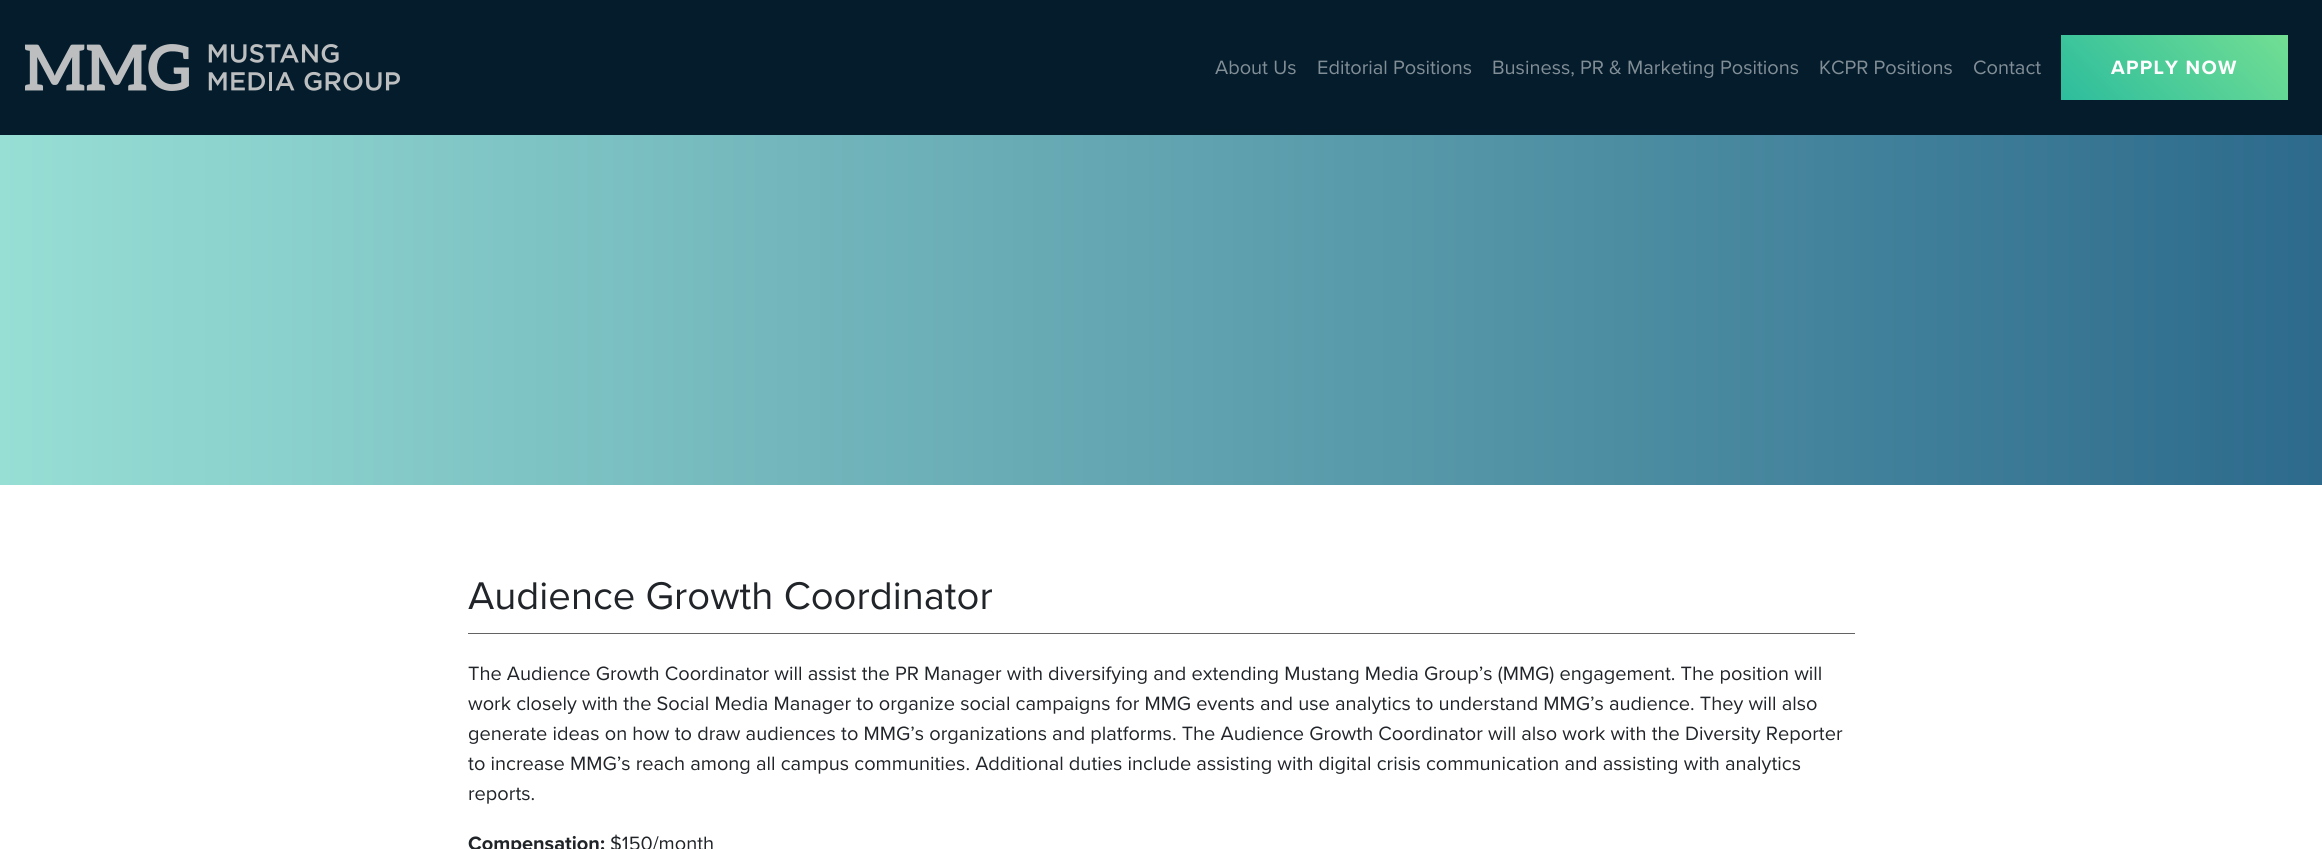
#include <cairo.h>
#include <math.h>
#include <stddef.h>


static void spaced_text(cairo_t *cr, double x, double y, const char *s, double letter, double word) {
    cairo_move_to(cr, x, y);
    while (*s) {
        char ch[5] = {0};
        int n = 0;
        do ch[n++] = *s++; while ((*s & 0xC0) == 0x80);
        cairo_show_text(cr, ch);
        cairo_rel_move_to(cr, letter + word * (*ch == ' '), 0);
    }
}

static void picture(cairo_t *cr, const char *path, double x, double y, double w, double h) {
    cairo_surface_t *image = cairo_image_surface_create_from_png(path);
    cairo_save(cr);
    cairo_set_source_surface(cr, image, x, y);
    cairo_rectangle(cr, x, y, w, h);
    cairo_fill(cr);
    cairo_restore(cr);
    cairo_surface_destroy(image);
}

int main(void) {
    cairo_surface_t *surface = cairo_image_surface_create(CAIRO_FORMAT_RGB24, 2322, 849);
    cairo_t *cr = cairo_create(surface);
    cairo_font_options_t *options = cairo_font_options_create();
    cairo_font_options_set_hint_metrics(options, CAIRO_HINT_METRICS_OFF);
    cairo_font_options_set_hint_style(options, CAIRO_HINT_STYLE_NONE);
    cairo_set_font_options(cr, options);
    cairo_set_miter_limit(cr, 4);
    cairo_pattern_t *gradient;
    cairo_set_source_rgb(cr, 1, 1, 1);
    cairo_paint(cr);
    cairo_set_source_rgb(cr, 0.016, 0.11, 0.173);
    cairo_rectangle(cr, 0, 0, 2322, 135);
    cairo_fill(cr);
    picture(cr, "img1.png", 25, 44, 375, 47);
    cairo_select_font_face(cr, "Proxima Nova", CAIRO_FONT_SLANT_NORMAL, CAIRO_FONT_WEIGHT_NORMAL);
    cairo_set_font_size(cr, 20);
    cairo_set_source_rgb(cr, 0.51, 0.557, 0.588);
    cairo_move_to(cr, 1215, 74);
    cairo_show_text(cr, "About Us");
    cairo_move_to(cr, 1317, 74);
    cairo_show_text(cr, "Editorial Positions");
    cairo_move_to(cr, 1492, 74);
    cairo_show_text(cr, "Business, PR & Marketing Positions");
    cairo_move_to(cr, 1819, 74);
    cairo_show_text(cr, "KCPR Positions");
    cairo_move_to(cr, 1973, 74);
    cairo_show_text(cr, "Contact");
    gradient = cairo_pattern_create_linear(2102, 140, 2247, -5.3);
    cairo_pattern_add_color_stop_rgba(gradient, 0, 0.176, 0.741, 0.616, 1);
    cairo_pattern_add_color_stop_rgba(gradient, 1, 0.447, 0.871, 0.576, 1);
    cairo_set_source(cr, gradient);
    cairo_pattern_destroy(gradient);
    cairo_rectangle(cr, 2061, 35, 227, 65);
    cairo_fill(cr);
    cairo_select_font_face(cr, "Proxima Nova", CAIRO_FONT_SLANT_NORMAL, CAIRO_FONT_WEIGHT_BOLD);
    cairo_set_source_rgb(cr, 1, 1, 1);
    spaced_text(cr, 2111, 74, "APPLY NOW", 1.25, 0);
    gradient = cairo_pattern_create_linear(0, 310, 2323, 310);
    cairo_pattern_add_color_stop_rgba(gradient, 0, 0.592, 0.871, 0.835, 1);
    cairo_pattern_add_color_stop_rgba(gradient, 1, 0.176, 0.416, 0.549, 1);
    cairo_set_source(cr, gradient);
    cairo_pattern_destroy(gradient);
    cairo_rectangle(cr, 0, 135, 2322, 350);
    cairo_fill(cr);
    cairo_set_source_rgb(cr, 0.388, 0.388, 0.388);
    cairo_rectangle(cr, 468, 633, 1387, 1);
    cairo_fill(cr);
    cairo_select_font_face(cr, "Proxima Nova", CAIRO_FONT_SLANT_NORMAL, CAIRO_FONT_WEIGHT_NORMAL);
    cairo_set_font_size(cr, 40);
    cairo_set_source_rgb(cr, 0.129, 0.145, 0.161);
    cairo_move_to(cr, 468, 609);
    cairo_show_text(cr, "Audience Growth Coordinator");
    cairo_set_font_size(cr, 20);
    cairo_move_to(cr, 468, 680);
    cairo_show_text(cr, "The Audience Growth Coordinator will assist the PR Manager with diversifying and extending Mustang Media Group’s (MMG) engagement. The position will");
    cairo_move_to(cr, 468, 710);
    cairo_show_text(cr, "work closely with the Social Media Manager to organize social campaigns for MMG events and use analytics to understand MMG’s audience. They will also");
    cairo_move_to(cr, 468, 740);
    cairo_show_text(cr, "generate ideas on how to draw audiences to MMG’s organizations and platforms. The Audience Growth Coordinator will also work with the Diversity Reporter");
    cairo_move_to(cr, 468, 770);
    cairo_show_text(cr, "to increase MMG’s reach among all campus communities. Additional duties include assisting with digital crisis communication and assisting with analytics");
    cairo_move_to(cr, 468, 800);
    cairo_show_text(cr, "reports.");
    cairo_select_font_face(cr, "Proxima Nova", CAIRO_FONT_SLANT_NORMAL, CAIRO_FONT_WEIGHT_BOLD);
    cairo_move_to(cr, 468, 850);
    cairo_show_text(cr, "Compensation:");
    cairo_select_font_face(cr, "Proxima Nova", CAIRO_FONT_SLANT_NORMAL, CAIRO_FONT_WEIGHT_NORMAL);
    cairo_move_to(cr, 610, 850);
    cairo_show_text(cr, "$150/month");
    cairo_surface_write_to_png(surface, "page.png");
    cairo_font_options_destroy(options);
    cairo_destroy(cr);
    cairo_surface_destroy(surface);
    return 0;
}
